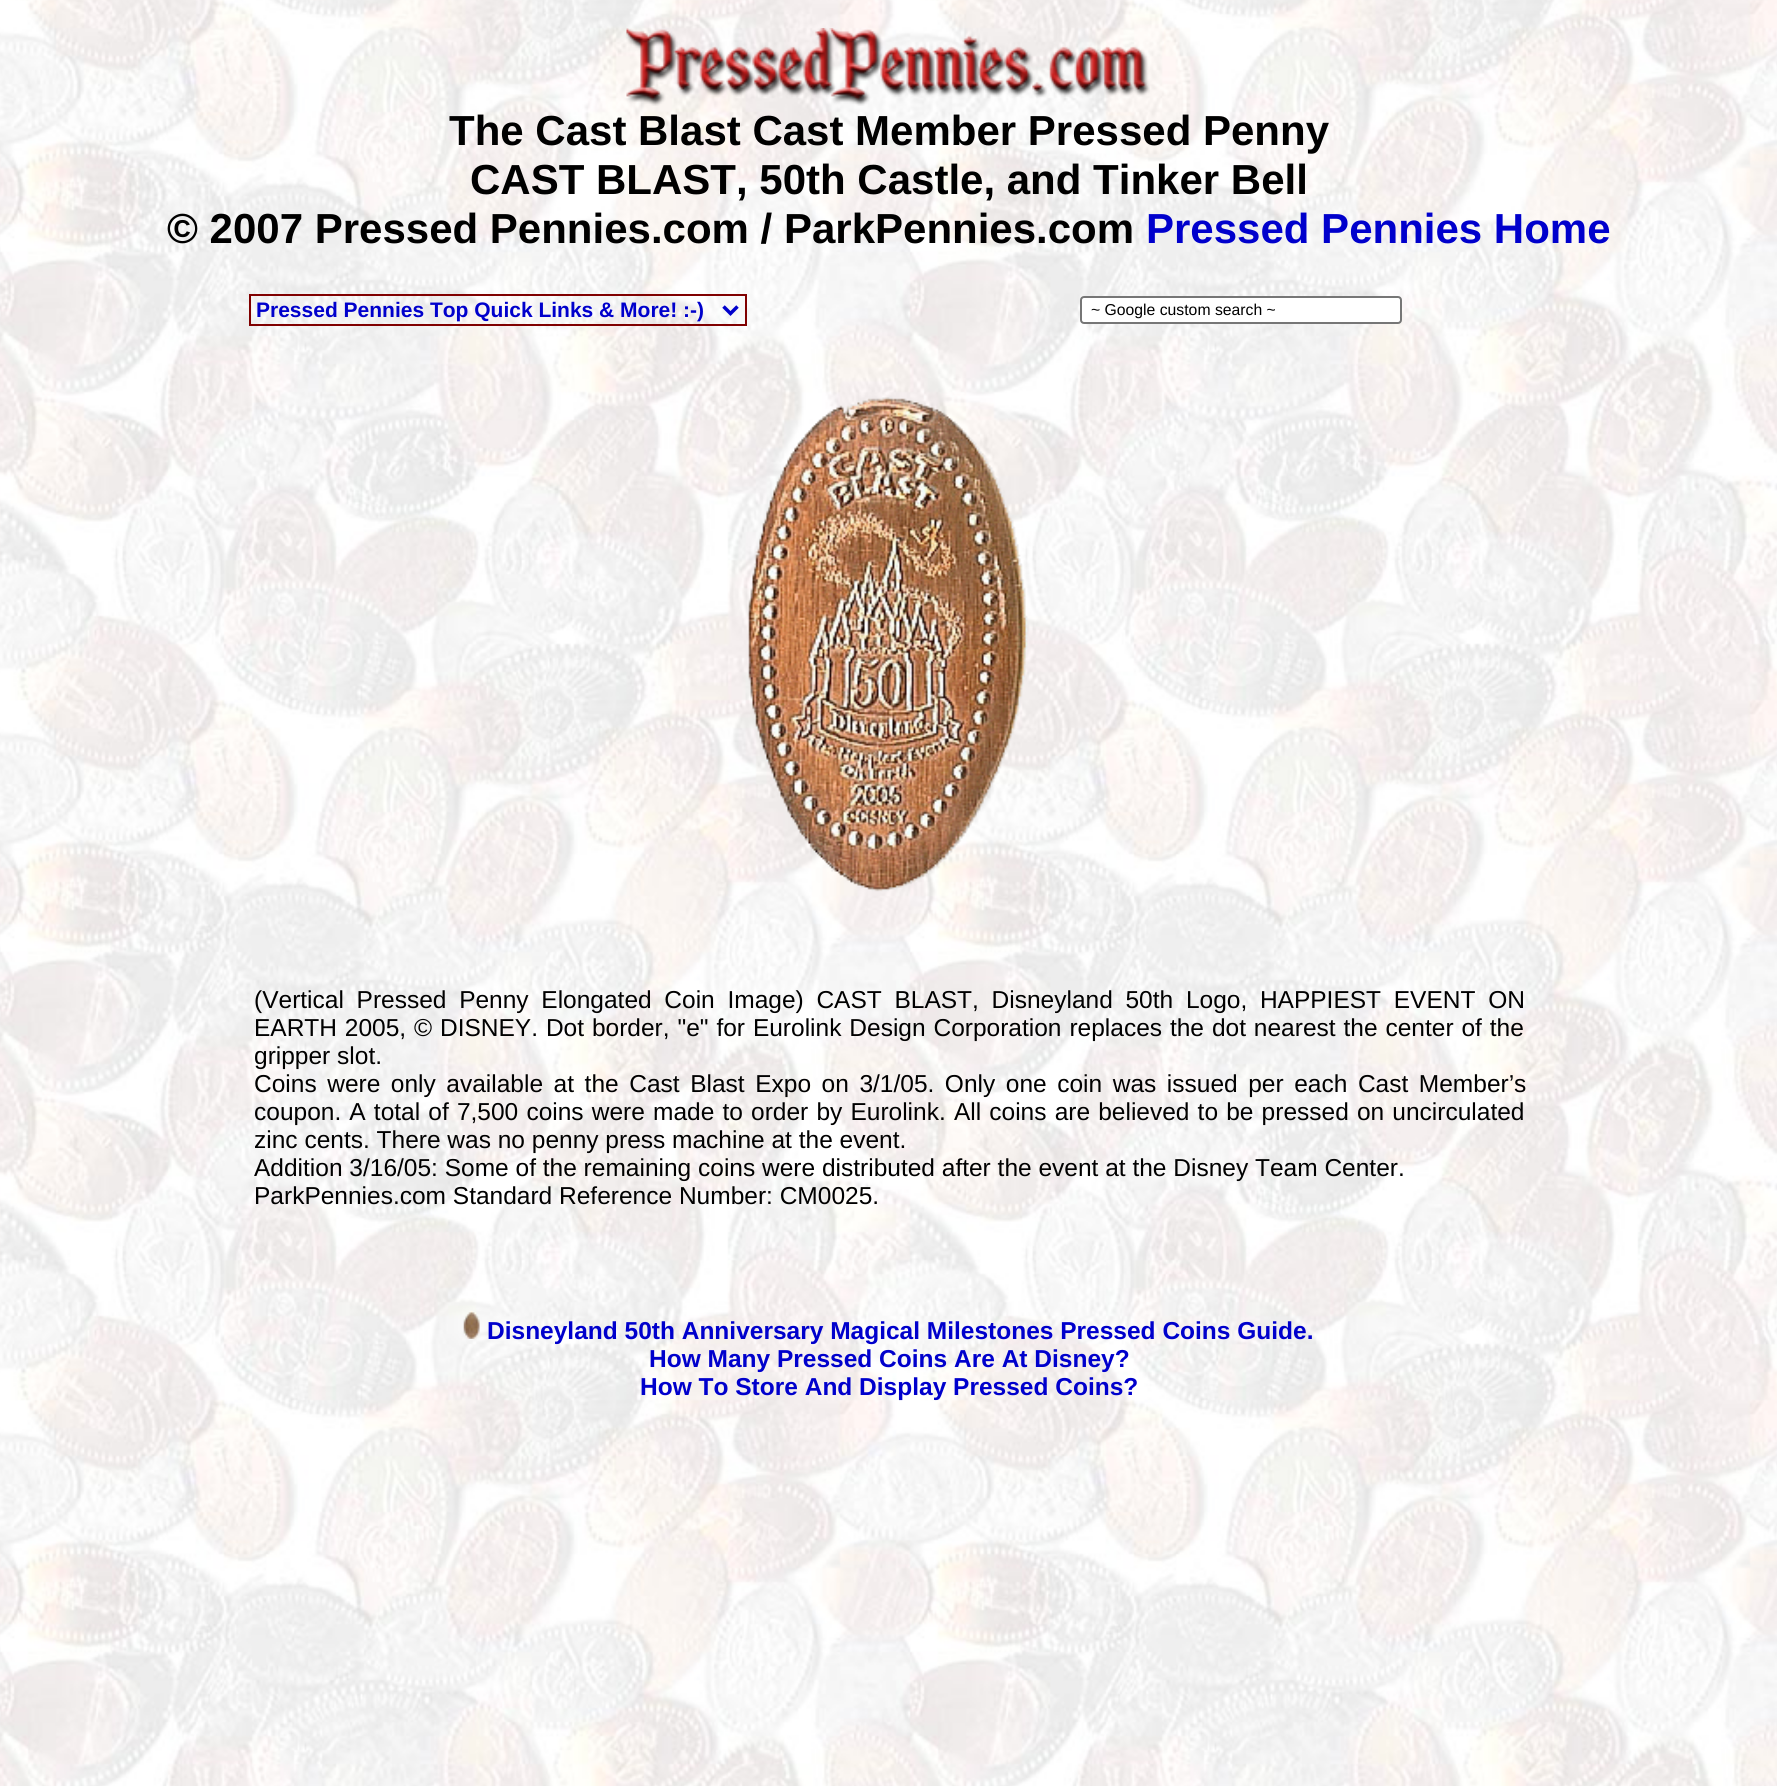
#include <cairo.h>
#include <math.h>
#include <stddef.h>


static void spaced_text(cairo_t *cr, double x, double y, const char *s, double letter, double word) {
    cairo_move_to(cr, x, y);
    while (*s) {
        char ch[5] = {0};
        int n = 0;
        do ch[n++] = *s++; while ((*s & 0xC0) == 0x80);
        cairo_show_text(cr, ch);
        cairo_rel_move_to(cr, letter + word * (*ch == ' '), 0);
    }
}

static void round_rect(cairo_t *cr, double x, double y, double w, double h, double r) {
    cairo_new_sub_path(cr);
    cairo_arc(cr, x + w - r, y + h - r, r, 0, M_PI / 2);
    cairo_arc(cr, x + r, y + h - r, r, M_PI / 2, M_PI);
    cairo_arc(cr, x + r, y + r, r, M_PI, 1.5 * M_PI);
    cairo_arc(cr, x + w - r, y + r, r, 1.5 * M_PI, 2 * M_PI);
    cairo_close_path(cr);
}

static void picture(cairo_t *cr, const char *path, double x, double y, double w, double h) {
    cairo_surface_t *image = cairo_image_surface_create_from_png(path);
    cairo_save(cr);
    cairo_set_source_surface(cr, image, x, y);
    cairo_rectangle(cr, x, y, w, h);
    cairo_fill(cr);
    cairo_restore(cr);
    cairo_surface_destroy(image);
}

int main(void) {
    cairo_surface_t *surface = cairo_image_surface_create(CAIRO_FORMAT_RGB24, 1777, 1786);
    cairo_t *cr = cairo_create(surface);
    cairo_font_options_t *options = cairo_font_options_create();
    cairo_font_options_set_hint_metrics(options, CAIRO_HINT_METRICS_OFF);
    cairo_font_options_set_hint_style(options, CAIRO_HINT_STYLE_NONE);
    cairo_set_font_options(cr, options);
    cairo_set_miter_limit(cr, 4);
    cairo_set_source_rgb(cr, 1, 1, 1);
    cairo_paint(cr);
    picture(cr, "img1.png", 0, 0, 1777, 1786);
    picture(cr, "img2.png", 626, 28, 524, 78);
    cairo_select_font_face(cr, "Liberation Sans", CAIRO_FONT_SLANT_NORMAL, CAIRO_FONT_WEIGHT_BOLD);
    cairo_set_font_size(cr, 42);
    cairo_set_source_rgb(cr, 0, 0, 0);
    cairo_move_to(cr, 449, 145);
    cairo_show_text(cr, "The Cast Blast Cast Member Pressed Penny");
    cairo_move_to(cr, 470, 194);
    cairo_show_text(cr, "CAST BLAST, 50th Castle, and Tinker Bell");
    cairo_move_to(cr, 167, 243);
    cairo_show_text(cr, "© 2007 Pressed Pennies.com / ParkPennies.com");
    cairo_set_source_rgb(cr, 0, 0, 0.8);
    cairo_move_to(cr, 1146, 243);
    cairo_show_text(cr, "Pressed Pennies Home");
    cairo_rectangle(cr, 250, 295, 496, 30);
    cairo_set_source_rgb(cr, 0.502, 0, 0);
    cairo_stroke(cr);
    cairo_new_path(cr);
    cairo_move_to(cr, 723.5, 306.5);
    cairo_line_to(cr, 730.5, 313.5);
    cairo_line_to(cr, 737.5, 306.5);
    cairo_set_source_rgb(cr, 0, 0, 0.8);
    cairo_set_line_width(cr, 3.5);
    cairo_stroke(cr);
    cairo_set_font_size(cr, 21);
    cairo_move_to(cr, 256, 317);
    cairo_show_text(cr, "Pressed Pennies Top Quick Links & More! :-)");
    cairo_set_source_rgb(cr, 1, 1, 1);
    round_rect(cr, 1081, 297, 320, 26, 3);
    cairo_fill_preserve(cr);
    cairo_set_source_rgb(cr, 0.463, 0.463, 0.463);
    cairo_set_line_width(cr, 2);
    cairo_stroke(cr);
    cairo_select_font_face(cr, "Liberation Sans", CAIRO_FONT_SLANT_NORMAL, CAIRO_FONT_WEIGHT_NORMAL);
    cairo_set_font_size(cr, 15.75);
    cairo_set_source_rgb(cr, 0, 0, 0);
    cairo_move_to(cr, 1091, 315);
    cairo_show_text(cr, "~ Google custom search ~");
    picture(cr, "img3.png", 748, 397, 280, 495);
    cairo_set_font_size(cr, 24.5);
    spaced_text(cr, 254, 1008, "(Vertical Pressed Penny Elongated Coin Image) CAST BLAST, Disneyland 50th Logo, HAPPIEST EVENT ON", 0, 5.9);
    spaced_text(cr, 254, 1036, "EARTH 2005,", 0, 1);
    spaced_text(cr, 414, 1036, "© DISNEY. Dot border, \"e\" for Eurolink Design Corporation replaces the dot nearest the center of the", 0, 1.1);
    cairo_move_to(cr, 254, 1064);
    cairo_show_text(cr, "gripper slot.");
    spaced_text(cr, 254, 1092, "Coins were only available at the Cast Blast Expo on 3/1/05. Only one coin was issued per each Cast Member’s", 0, 3.75);
    spaced_text(cr, 254, 1120, "coupon. A total of 7,500 coins were made to order by Eurolink. All coins are believed to be pressed on uncirculated", 0, 1.35);
    cairo_move_to(cr, 254, 1148);
    cairo_show_text(cr, "zinc cents. There was no penny press machine at the event.");
    cairo_move_to(cr, 254, 1176);
    cairo_show_text(cr, "Addition 3/16/05: Some of the remaining coins were distributed after the event at the Disney Team Center.");
    cairo_move_to(cr, 254, 1204);
    cairo_show_text(cr, "ParkPennies.com Standard Reference Number: CM0025.");
    picture(cr, "img4.png", 463, 1311, 17, 28);
    cairo_select_font_face(cr, "Liberation Sans", CAIRO_FONT_SLANT_NORMAL, CAIRO_FONT_WEIGHT_BOLD);
    cairo_set_source_rgb(cr, 0, 0, 0.8);
    cairo_move_to(cr, 487, 1339);
    cairo_show_text(cr, "Disneyland 50th Anniversary Magical Milestones Pressed Coins Guide.");
    cairo_move_to(cr, 649, 1367);
    cairo_show_text(cr, "How Many Pressed Coins Are At Disney?");
    cairo_move_to(cr, 640, 1395);
    cairo_show_text(cr, "How To Store And Display Pressed Coins?");
    cairo_surface_write_to_png(surface, "page.png");
    cairo_font_options_destroy(options);
    cairo_destroy(cr);
    cairo_surface_destroy(surface);
    return 0;
}
